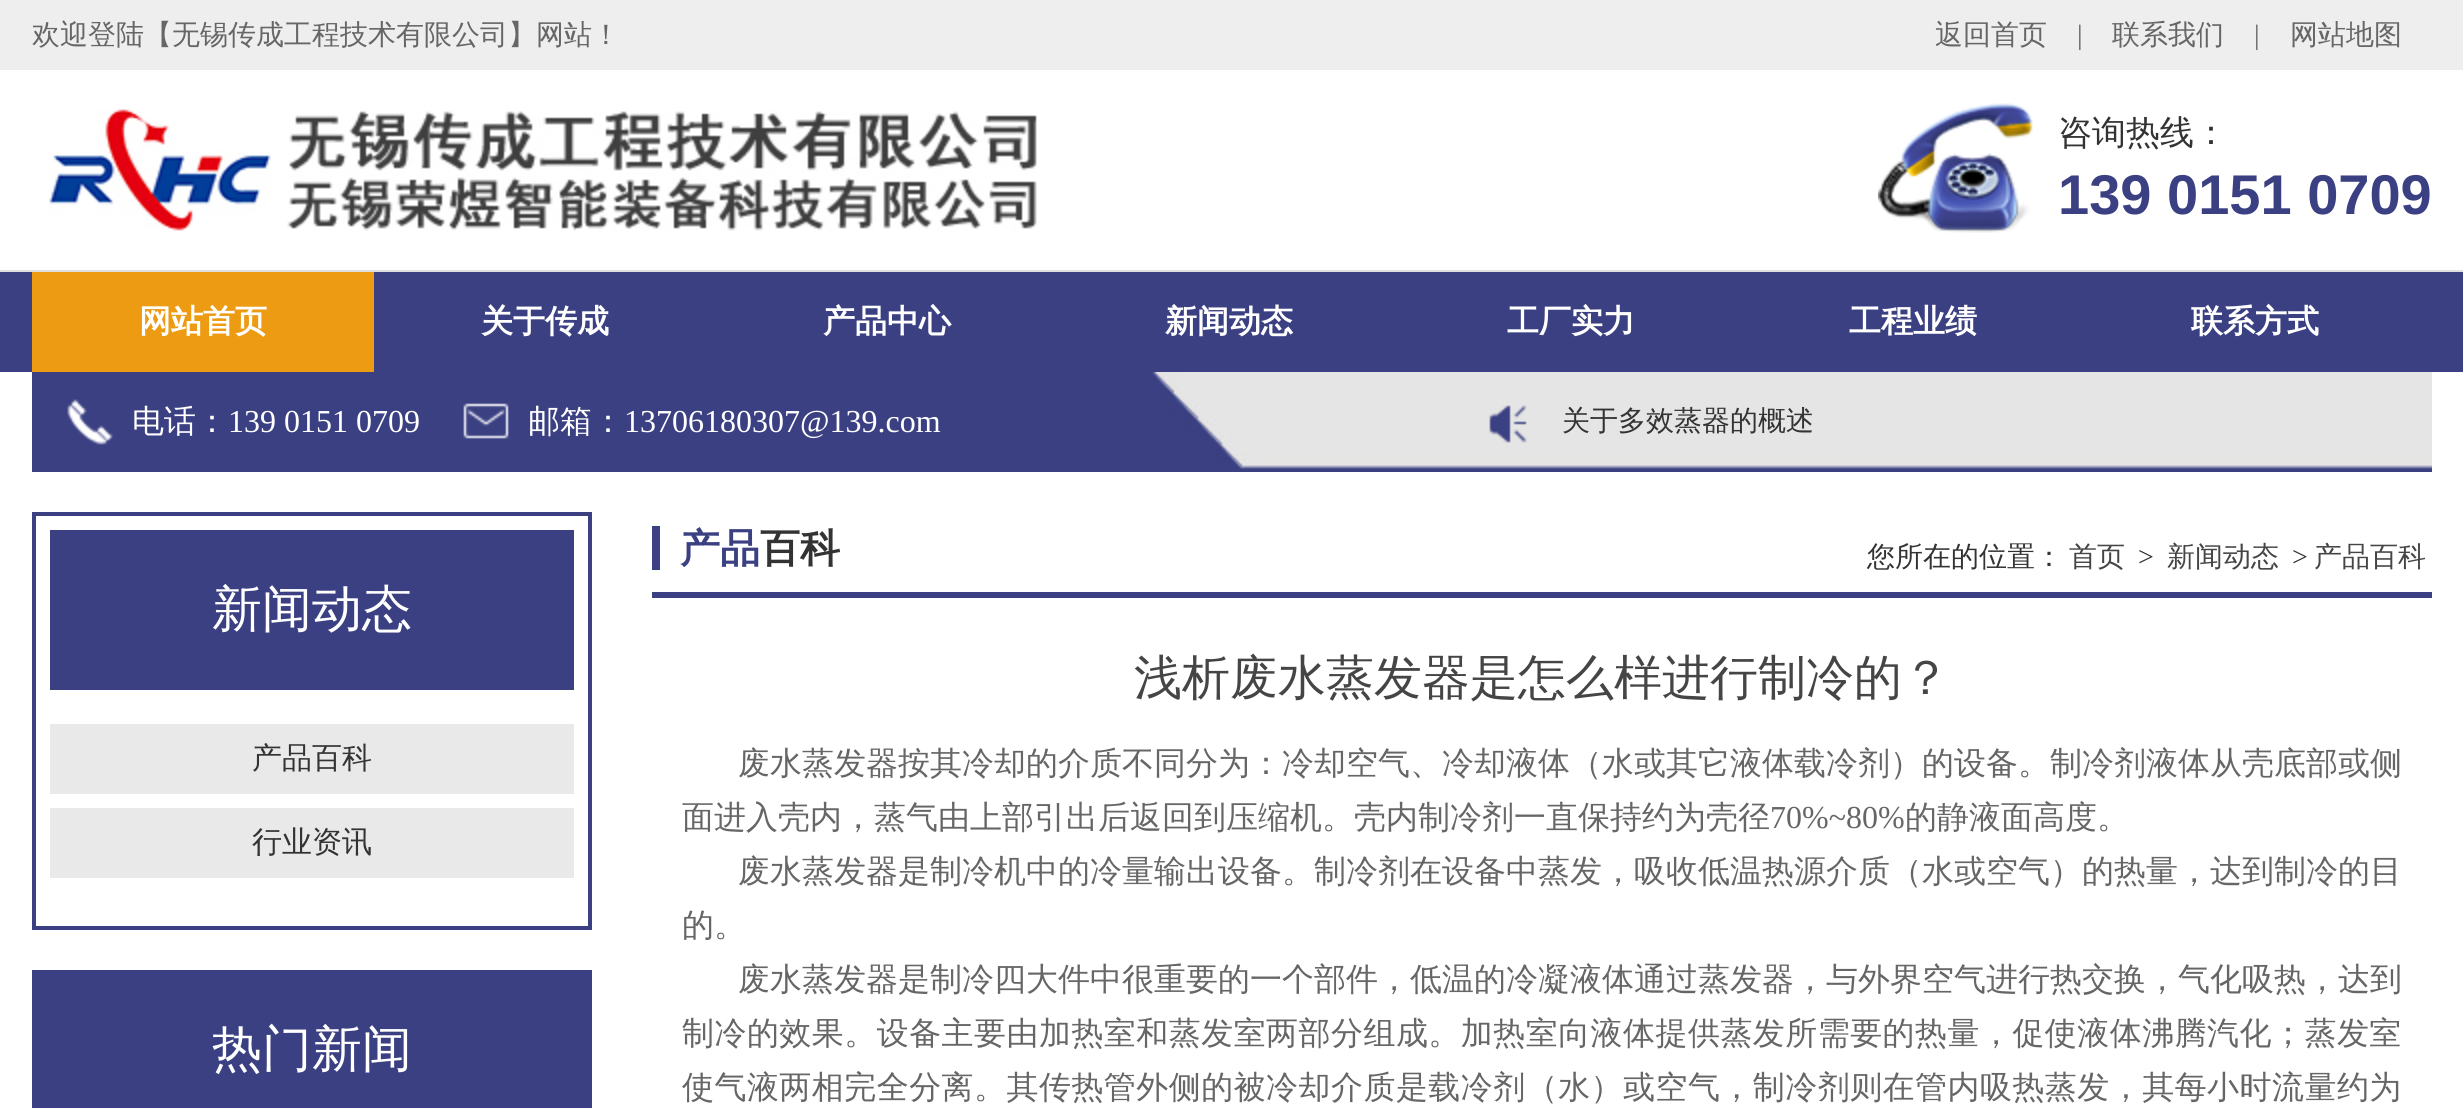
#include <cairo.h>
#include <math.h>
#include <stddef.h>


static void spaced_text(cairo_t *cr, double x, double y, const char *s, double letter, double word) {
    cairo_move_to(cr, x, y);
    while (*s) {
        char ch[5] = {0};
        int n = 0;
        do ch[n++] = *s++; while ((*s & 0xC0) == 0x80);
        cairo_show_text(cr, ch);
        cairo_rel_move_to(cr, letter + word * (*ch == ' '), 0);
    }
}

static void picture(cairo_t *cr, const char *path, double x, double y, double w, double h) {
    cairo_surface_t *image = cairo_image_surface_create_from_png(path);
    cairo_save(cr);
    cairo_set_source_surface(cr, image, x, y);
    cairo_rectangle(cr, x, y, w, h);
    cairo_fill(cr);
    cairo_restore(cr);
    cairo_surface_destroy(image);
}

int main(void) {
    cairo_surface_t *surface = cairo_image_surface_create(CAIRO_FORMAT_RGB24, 2463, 1108);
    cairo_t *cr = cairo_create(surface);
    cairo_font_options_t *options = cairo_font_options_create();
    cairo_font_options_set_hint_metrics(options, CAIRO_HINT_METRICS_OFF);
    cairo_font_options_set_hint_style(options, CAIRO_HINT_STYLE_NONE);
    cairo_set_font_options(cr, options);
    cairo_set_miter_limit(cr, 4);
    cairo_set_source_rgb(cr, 1, 1, 1);
    cairo_paint(cr);
    cairo_set_source_rgb(cr, 0.933, 0.933, 0.933);
    cairo_rectangle(cr, 0, 0, 2463, 70);
    cairo_fill(cr);
    cairo_select_font_face(cr, "WenQuanYi Zen Hei Medium", CAIRO_FONT_SLANT_NORMAL, CAIRO_FONT_WEIGHT_NORMAL);
    cairo_set_font_size(cr, 28);
    cairo_set_source_rgb(cr, 0.4, 0.4, 0.4);
    cairo_move_to(cr, 32, 44);
    cairo_show_text(cr, "欢迎登陆【无锡传成工程技术有限公司】网站！");
    cairo_move_to(cr, 1935, 44);
    cairo_show_text(cr, "返回首页");
    cairo_select_font_face(cr, "Liberation Serif", CAIRO_FONT_SLANT_NORMAL, CAIRO_FONT_WEIGHT_NORMAL);
    cairo_move_to(cr, 2077, 44);
    cairo_show_text(cr, "|");
    cairo_select_font_face(cr, "WenQuanYi Zen Hei Medium", CAIRO_FONT_SLANT_NORMAL, CAIRO_FONT_WEIGHT_NORMAL);
    cairo_move_to(cr, 2112, 44);
    cairo_show_text(cr, "联系我们");
    cairo_select_font_face(cr, "Liberation Serif", CAIRO_FONT_SLANT_NORMAL, CAIRO_FONT_WEIGHT_NORMAL);
    cairo_move_to(cr, 2254, 44);
    cairo_show_text(cr, "|");
    cairo_select_font_face(cr, "WenQuanYi Zen Hei Medium", CAIRO_FONT_SLANT_NORMAL, CAIRO_FONT_WEIGHT_NORMAL);
    cairo_move_to(cr, 2290, 44);
    cairo_show_text(cr, "网站地图");
    picture(cr, "img1.png", 49, 109, 988, 122);
    picture(cr, "img2.png", 1878, 103, 155, 130);
    cairo_set_font_size(cr, 34);
    cairo_set_source_rgb(cr, 0.2, 0.2, 0.2);
    cairo_move_to(cr, 2058, 144);
    cairo_show_text(cr, "咨询热线：");
    cairo_select_font_face(cr, "Liberation Sans", CAIRO_FONT_SLANT_NORMAL, CAIRO_FONT_WEIGHT_BOLD);
    cairo_set_font_size(cr, 56);
    cairo_set_source_rgb(cr, 0.231, 0.251, 0.51);
    cairo_move_to(cr, 2058, 214);
    cairo_show_text(cr, "139 0151 0709");
    cairo_rectangle(cr, 0, 272, 2463, 100);
    cairo_fill(cr);
    cairo_set_source_rgb(cr, 0.875, 0.875, 0.875);
    cairo_rectangle(cr, 0, 270, 2463, 2);
    cairo_fill(cr);
    cairo_set_source_rgb(cr, 0.925, 0.608, 0.075);
    cairo_rectangle(cr, 32, 272, 342, 100);
    cairo_fill(cr);
    cairo_select_font_face(cr, "WenQuanYi Zen Hei", CAIRO_FONT_SLANT_NORMAL, CAIRO_FONT_WEIGHT_BOLD);
    cairo_set_font_size(cr, 32);
    cairo_set_source_rgb(cr, 1, 1, 1);
    cairo_move_to(cr, 139, 332);
    cairo_show_text(cr, "网站首页");
    cairo_move_to(cr, 481, 332);
    cairo_show_text(cr, "关于传成");
    cairo_move_to(cr, 823, 332);
    cairo_show_text(cr, "产品中心");
    cairo_move_to(cr, 1165, 332);
    cairo_show_text(cr, "新闻动态");
    cairo_move_to(cr, 1507, 332);
    cairo_show_text(cr, "工厂实力");
    cairo_move_to(cr, 1849, 332);
    cairo_show_text(cr, "工程业绩");
    cairo_move_to(cr, 2191, 332);
    cairo_show_text(cr, "联系方式");
    picture(cr, "img3.png", 32, 372, 2400, 100);
    picture(cr, "img4.png", 67, 399, 46, 46);
    cairo_select_font_face(cr, "WenQuanYi Zen Hei Medium", CAIRO_FONT_SLANT_NORMAL, CAIRO_FONT_WEIGHT_NORMAL);
    cairo_move_to(cr, 132, 432);
    cairo_show_text(cr, "电话：");
    cairo_select_font_face(cr, "Liberation Serif", CAIRO_FONT_SLANT_NORMAL, CAIRO_FONT_WEIGHT_NORMAL);
    cairo_move_to(cr, 228, 432);
    cairo_show_text(cr, "139 0151 0709");
    picture(cr, "img5.png", 463, 403, 46, 36);
    cairo_select_font_face(cr, "WenQuanYi Zen Hei Medium", CAIRO_FONT_SLANT_NORMAL, CAIRO_FONT_WEIGHT_NORMAL);
    cairo_move_to(cr, 528, 432);
    cairo_show_text(cr, "邮箱：");
    cairo_select_font_face(cr, "Liberation Serif", CAIRO_FONT_SLANT_NORMAL, CAIRO_FONT_WEIGHT_NORMAL);
    cairo_move_to(cr, 624, 432);
    cairo_show_text(cr, "13706180307@139.com");
    picture(cr, "img6.png", 1489, 405, 38, 38);
    cairo_select_font_face(cr, "WenQuanYi Zen Hei Medium", CAIRO_FONT_SLANT_NORMAL, CAIRO_FONT_WEIGHT_NORMAL);
    cairo_set_font_size(cr, 28);
    cairo_set_source_rgb(cr, 0.2, 0.2, 0.2);
    cairo_move_to(cr, 1562, 430);
    cairo_show_text(cr, "关于多效蒸器的概述");
    cairo_rectangle(cr, 34, 514, 556, 414);
    cairo_set_source_rgb(cr, 0.231, 0.251, 0.51);
    cairo_set_line_width(cr, 4);
    cairo_stroke(cr);
    cairo_rectangle(cr, 50, 530, 524, 160);
    cairo_fill(cr);
    cairo_set_font_size(cr, 50);
    cairo_set_source_rgb(cr, 1, 1, 1);
    cairo_move_to(cr, 212, 626);
    cairo_show_text(cr, "新闻动态");
    cairo_set_source_rgb(cr, 0.914, 0.914, 0.914);
    cairo_rectangle(cr, 50, 724, 524, 70);
    cairo_fill(cr);
    cairo_set_font_size(cr, 30);
    cairo_set_source_rgb(cr, 0.2, 0.2, 0.2);
    cairo_move_to(cr, 252, 768);
    cairo_show_text(cr, "产品百科");
    cairo_set_source_rgb(cr, 0.914, 0.914, 0.914);
    cairo_rectangle(cr, 50, 808, 524, 70);
    cairo_fill(cr);
    cairo_set_source_rgb(cr, 0.2, 0.2, 0.2);
    cairo_move_to(cr, 252, 852);
    cairo_show_text(cr, "行业资讯");
    cairo_set_source_rgb(cr, 0.231, 0.251, 0.51);
    cairo_rectangle(cr, 32, 970, 560, 138);
    cairo_fill(cr);
    cairo_set_font_size(cr, 50);
    cairo_set_source_rgb(cr, 1, 1, 1);
    cairo_move_to(cr, 212, 1066);
    cairo_show_text(cr, "热门新闻");
    cairo_set_source_rgb(cr, 0.231, 0.251, 0.51);
    cairo_rectangle(cr, 652, 592, 1780, 6);
    cairo_fill(cr);
    cairo_rectangle(cr, 652, 526, 8, 44);
    cairo_fill(cr);
    cairo_select_font_face(cr, "WenQuanYi Zen Hei", CAIRO_FONT_SLANT_NORMAL, CAIRO_FONT_WEIGHT_BOLD);
    cairo_set_font_size(cr, 40);
    cairo_move_to(cr, 680, 562);
    cairo_show_text(cr, "产品");
    cairo_set_source_rgb(cr, 0.2, 0.2, 0.2);
    cairo_move_to(cr, 760, 562);
    cairo_show_text(cr, "百科");
    cairo_select_font_face(cr, "WenQuanYi Zen Hei Medium", CAIRO_FONT_SLANT_NORMAL, CAIRO_FONT_WEIGHT_NORMAL);
    cairo_set_font_size(cr, 28);
    cairo_move_to(cr, 1867, 566);
    cairo_show_text(cr, "您所在的位置：");
    cairo_set_source_rgb(cr, 0.271, 0.271, 0.271);
    cairo_move_to(cr, 2069, 566);
    cairo_show_text(cr, "首页");
    cairo_select_font_face(cr, "Liberation Serif", CAIRO_FONT_SLANT_NORMAL, CAIRO_FONT_WEIGHT_NORMAL);
    cairo_set_source_rgb(cr, 0.2, 0.2, 0.2);
    cairo_move_to(cr, 2138, 566);
    cairo_show_text(cr, ">");
    cairo_select_font_face(cr, "WenQuanYi Zen Hei Medium", CAIRO_FONT_SLANT_NORMAL, CAIRO_FONT_WEIGHT_NORMAL);
    cairo_set_source_rgb(cr, 0.271, 0.271, 0.271);
    cairo_move_to(cr, 2167, 566);
    cairo_show_text(cr, "新闻动态");
    cairo_select_font_face(cr, "Liberation Serif", CAIRO_FONT_SLANT_NORMAL, CAIRO_FONT_WEIGHT_NORMAL);
    cairo_set_source_rgb(cr, 0.2, 0.2, 0.2);
    cairo_move_to(cr, 2292, 566);
    cairo_show_text(cr, ">");
    cairo_select_font_face(cr, "WenQuanYi Zen Hei Medium", CAIRO_FONT_SLANT_NORMAL, CAIRO_FONT_WEIGHT_NORMAL);
    cairo_set_source_rgb(cr, 0.271, 0.271, 0.271);
    cairo_move_to(cr, 2314, 566);
    cairo_show_text(cr, "产品百科");
    cairo_set_font_size(cr, 48);
    cairo_move_to(cr, 1134, 694);
    cairo_show_text(cr, "浅析废水蒸发器是怎么样进行制冷的？");
    cairo_set_font_size(cr, 32);
    cairo_set_source_rgb(cr, 0.4, 0.4, 0.4);
    cairo_move_to(cr, 738, 774);
    cairo_show_text(cr, "废水蒸发器按其冷却的介质不同分为：冷却空气、冷却液体（水或其它液体载冷剂）的设备。制冷剂液体从壳底部或侧");
    cairo_move_to(cr, 682, 828);
    cairo_show_text(cr, "面进入壳内，蒸气由上部引出后返回到压缩机。壳内制冷剂一直保持约为壳径");
    cairo_select_font_face(cr, "Liberation Serif", CAIRO_FONT_SLANT_NORMAL, CAIRO_FONT_WEIGHT_NORMAL);
    cairo_move_to(cr, 1770, 828);
    cairo_show_text(cr, "70%~80%");
    cairo_select_font_face(cr, "WenQuanYi Zen Hei Medium", CAIRO_FONT_SLANT_NORMAL, CAIRO_FONT_WEIGHT_NORMAL);
    cairo_move_to(cr, 1905, 828);
    cairo_show_text(cr, "的静液面高度。");
    cairo_move_to(cr, 738, 882);
    cairo_show_text(cr, "废水蒸发器是制冷机中的冷量输出设备。制冷剂在设备中蒸发，吸收低温热源介质（水或空气）的热量，达到制冷的目");
    cairo_move_to(cr, 682, 936);
    cairo_show_text(cr, "的。");
    cairo_move_to(cr, 738, 990);
    cairo_show_text(cr, "废水蒸发器是制冷四大件中很重要的一个部件，低温的冷凝液体通过蒸发器，与外界空气进行热交换，气化吸热，达到");
    spaced_text(cr, 682, 1044, "制冷的效果。设备主要由加热室和蒸发室两部分组成。加热室向液体提供蒸发所需要的热量，促使液体沸腾汽化；蒸发室", 0.45, 0);
    spaced_text(cr, 682, 1098, "使气液两相完全分离。其传热管外侧的被冷却介质是载冷剂（水）或空气，制冷剂则在管内吸热蒸发，其每小时流量约为", 0.45, 0);
    cairo_surface_write_to_png(surface, "page.png");
    cairo_font_options_destroy(options);
    cairo_destroy(cr);
    cairo_surface_destroy(surface);
    return 0;
}
